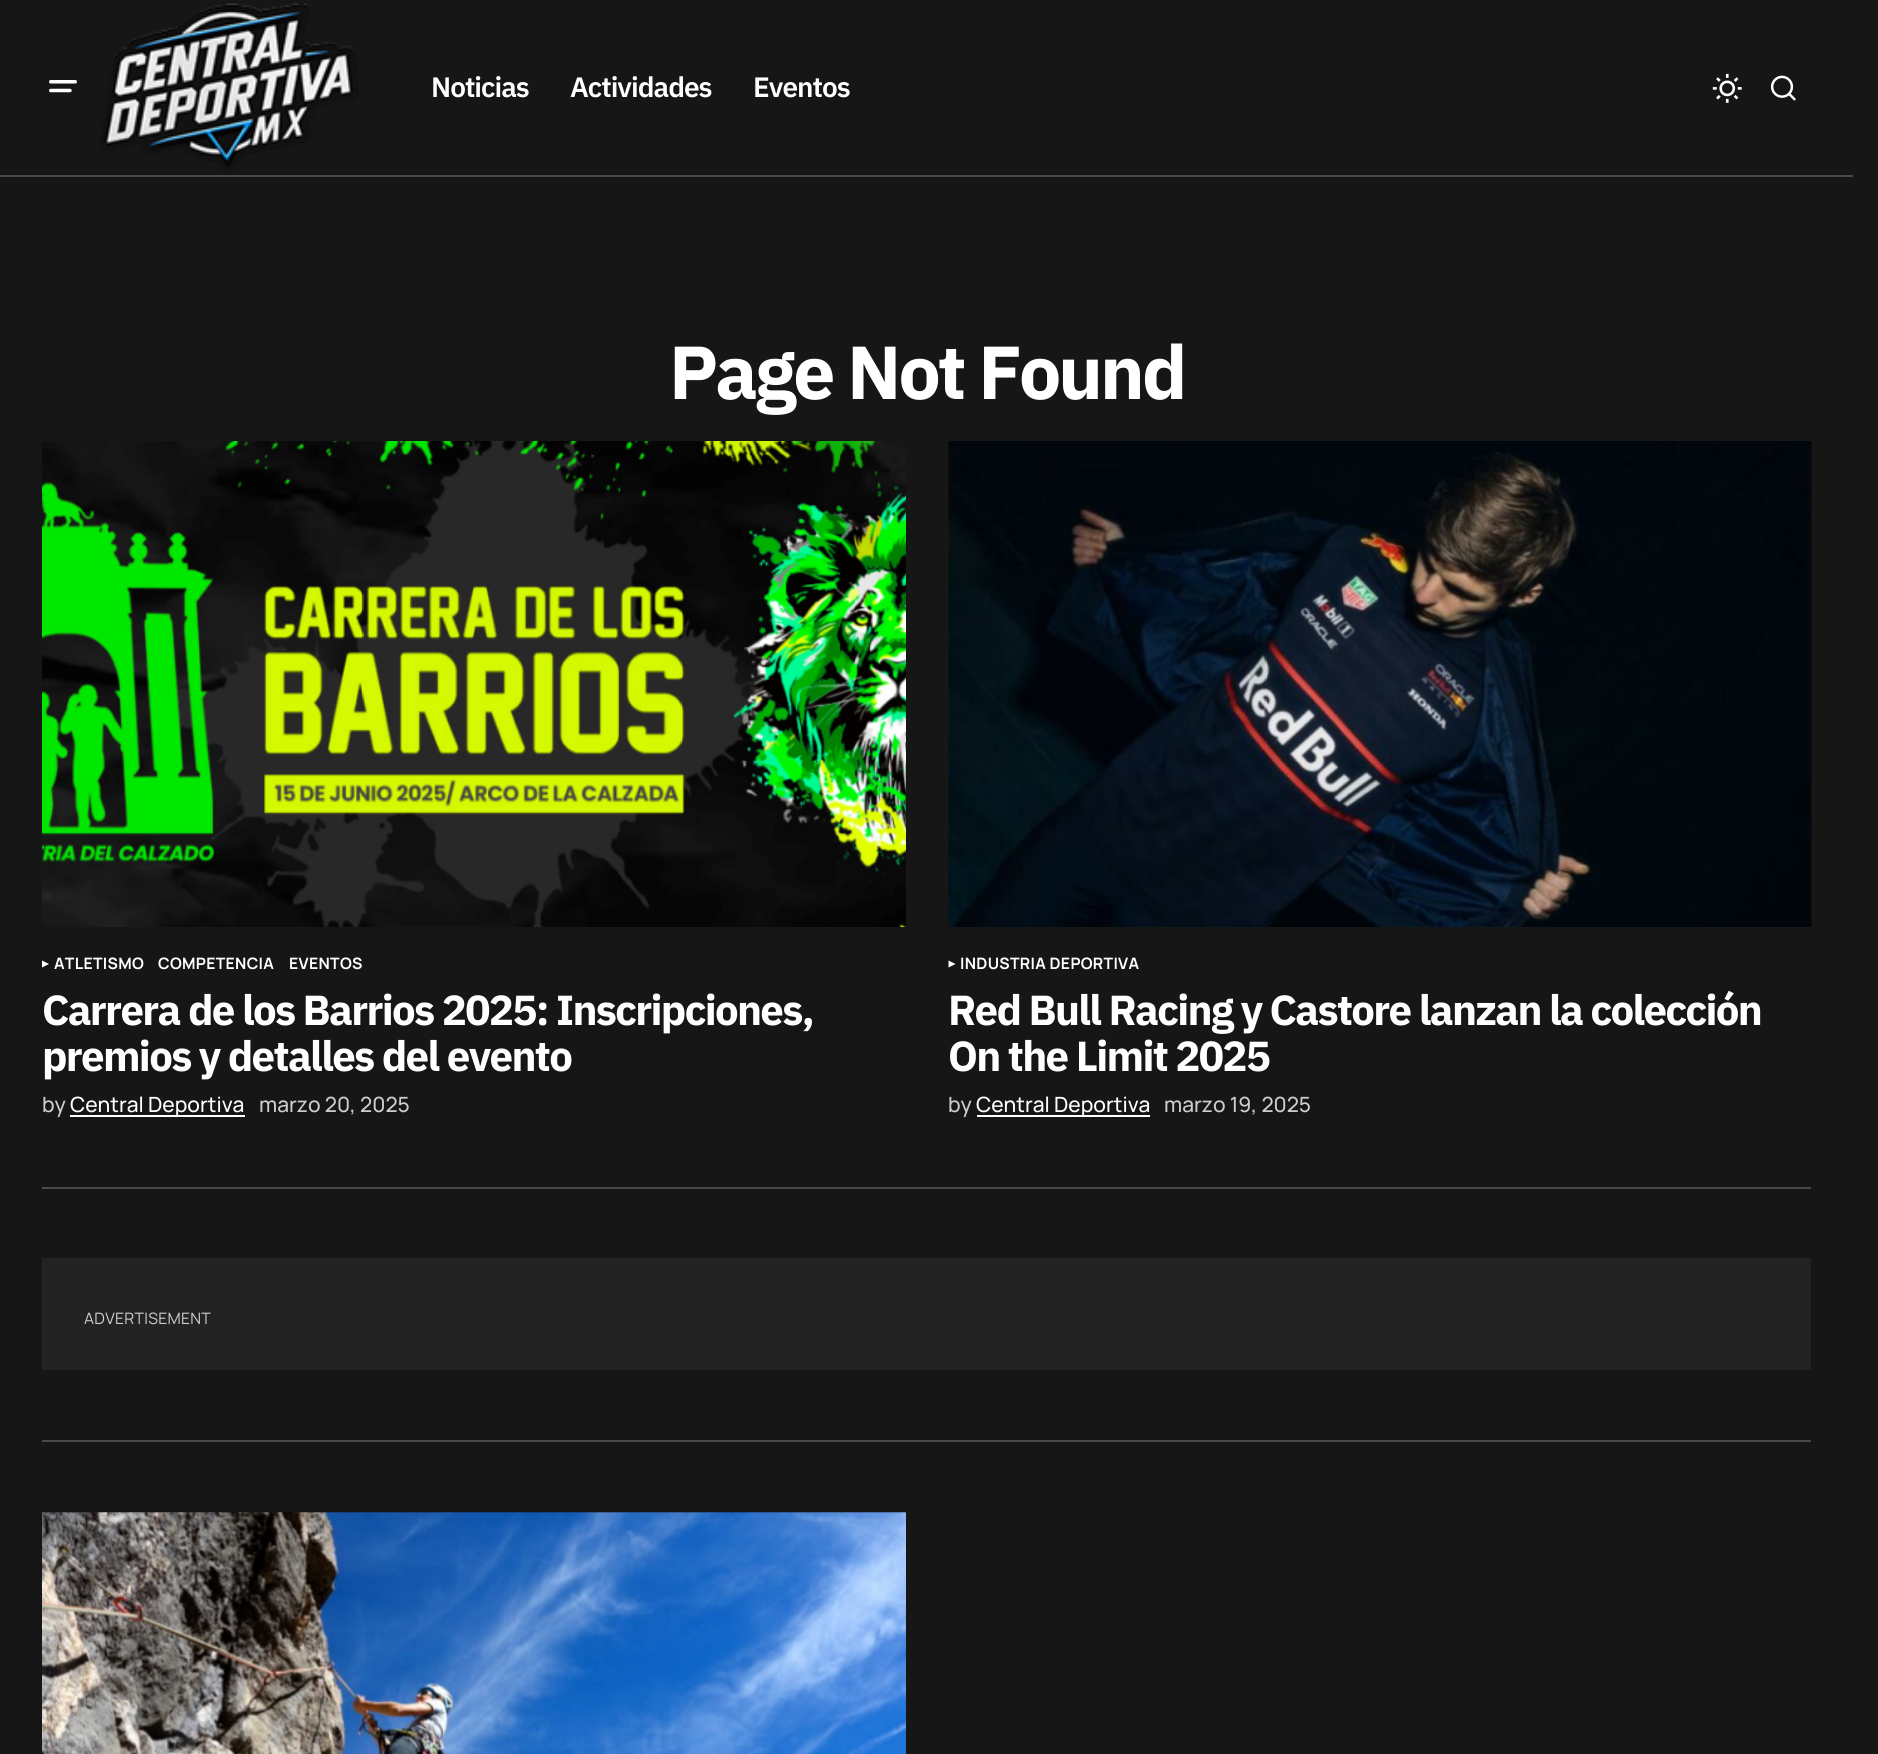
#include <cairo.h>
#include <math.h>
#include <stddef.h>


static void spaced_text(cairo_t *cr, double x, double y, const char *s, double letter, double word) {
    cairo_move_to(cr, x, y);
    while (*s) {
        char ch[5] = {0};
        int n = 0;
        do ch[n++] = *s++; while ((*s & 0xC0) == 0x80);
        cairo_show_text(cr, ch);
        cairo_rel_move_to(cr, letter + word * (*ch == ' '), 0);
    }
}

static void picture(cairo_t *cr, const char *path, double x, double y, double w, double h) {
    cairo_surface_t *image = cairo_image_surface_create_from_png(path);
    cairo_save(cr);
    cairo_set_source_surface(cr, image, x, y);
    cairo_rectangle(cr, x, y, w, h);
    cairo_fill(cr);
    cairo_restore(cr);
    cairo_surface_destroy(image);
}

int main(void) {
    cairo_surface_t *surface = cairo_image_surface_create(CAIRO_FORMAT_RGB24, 1878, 1754);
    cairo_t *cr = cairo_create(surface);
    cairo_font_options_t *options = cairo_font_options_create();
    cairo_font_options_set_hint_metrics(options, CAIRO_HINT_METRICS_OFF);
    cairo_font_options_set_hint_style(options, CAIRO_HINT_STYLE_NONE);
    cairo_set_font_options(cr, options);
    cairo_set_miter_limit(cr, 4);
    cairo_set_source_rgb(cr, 0.086, 0.086, 0.086);
    cairo_paint(cr);
    picture(cr, "img1.png", 49, 80, 28, 13);
    picture(cr, "img2.png", 100, 3, 259, 167);
    cairo_select_font_face(cr, "IBM Plex Sans SemiBold", CAIRO_FONT_SLANT_NORMAL, CAIRO_FONT_WEIGHT_NORMAL);
    cairo_set_font_size(cr, 28);
    cairo_set_source_rgb(cr, 1, 1, 1);
    spaced_text(cr, 431, 97, "Noticias", -1, 0);
    spaced_text(cr, 570, 97, "Actividades", -1, 0);
    spaced_text(cr, 753, 97, "Eventos", -1, 0);
    picture(cr, "img3.png", 1712, 73, 30, 30);
    picture(cr, "img4.png", 1770, 75, 26, 26);
    cairo_set_source_rgb(cr, 0.286, 0.286, 0.286);
    cairo_rectangle(cr, 0, 175, 1853, 2);
    cairo_fill(cr);
    cairo_select_font_face(cr, "IBM Plex Sans", CAIRO_FONT_SLANT_NORMAL, CAIRO_FONT_WEIGHT_BOLD);
    cairo_set_font_size(cr, 75);
    cairo_set_source_rgb(cr, 1, 1, 1);
    spaced_text(cr, 669, 399, "Page Not Found", -3, 0);
    picture(cr, "img5.png", 42, 441, 864, 486);
    cairo_new_path(cr);
    cairo_move_to(cr, 49, 964);
    cairo_line_to(cr, 42, 967.5);
    cairo_line_to(cr, 42, 960.5);
    cairo_close_path(cr);
    cairo_fill(cr);
    cairo_select_font_face(cr, "Manrope", CAIRO_FONT_SLANT_NORMAL, CAIRO_FONT_WEIGHT_BOLD);
    cairo_set_font_size(cr, 15.75);
    spaced_text(cr, 54, 969, "ATLETISMO", 0.3, 0);
    spaced_text(cr, 158, 969, "COMPETENCIA", 0.3, 0);
    spaced_text(cr, 289, 969, "EVENTOS", 0.3, 0);
    cairo_select_font_face(cr, "IBM Plex Sans", CAIRO_FONT_SLANT_NORMAL, CAIRO_FONT_WEIGHT_BOLD);
    cairo_set_font_size(cr, 42);
    spaced_text(cr, 42, 1025, "Carrera de los Barrios 2025: Inscripciones,", -1.7, 0);
    spaced_text(cr, 42, 1071, "premios y detalles del evento", -1.7, 0);
    cairo_select_font_face(cr, "Manrope Medium", CAIRO_FONT_SLANT_NORMAL, CAIRO_FONT_WEIGHT_NORMAL);
    cairo_set_font_size(cr, 21);
    cairo_set_source_rgb(cr, 0.804, 0.804, 0.804);
    cairo_move_to(cr, 42, 1112);
    cairo_show_text(cr, "by");
    cairo_set_source_rgb(cr, 1, 1, 1);
    cairo_rectangle(cr, 70, 1115, 175, 2);
    cairo_fill(cr);
    cairo_move_to(cr, 70, 1112);
    cairo_show_text(cr, "Central Deportiva");
    cairo_set_source_rgb(cr, 0.804, 0.804, 0.804);
    cairo_move_to(cr, 259, 1112);
    cairo_show_text(cr, "marzo 20, 2025");
    picture(cr, "img6.png", 948, 441, 864, 486);
    cairo_set_source_rgb(cr, 1, 1, 1);
    cairo_new_path(cr);
    cairo_move_to(cr, 955.5, 964);
    cairo_line_to(cr, 948.5, 967.5);
    cairo_line_to(cr, 948.5, 960.5);
    cairo_close_path(cr);
    cairo_fill(cr);
    cairo_select_font_face(cr, "Manrope", CAIRO_FONT_SLANT_NORMAL, CAIRO_FONT_WEIGHT_BOLD);
    cairo_set_font_size(cr, 15.75);
    spaced_text(cr, 960, 969, "INDUSTRIA DEPORTIVA", 0.3, 0);
    cairo_select_font_face(cr, "IBM Plex Sans", CAIRO_FONT_SLANT_NORMAL, CAIRO_FONT_WEIGHT_BOLD);
    cairo_set_font_size(cr, 42);
    spaced_text(cr, 948, 1025, "Red Bull Racing y Castore lanzan la colección", -1.7, 0);
    spaced_text(cr, 948, 1071, "On the Limit 2025", -1.7, 0);
    cairo_select_font_face(cr, "Manrope Medium", CAIRO_FONT_SLANT_NORMAL, CAIRO_FONT_WEIGHT_NORMAL);
    cairo_set_font_size(cr, 21);
    cairo_set_source_rgb(cr, 0.804, 0.804, 0.804);
    cairo_move_to(cr, 948, 1112);
    cairo_show_text(cr, "by");
    cairo_set_source_rgb(cr, 1, 1, 1);
    cairo_rectangle(cr, 977, 1115, 173, 2);
    cairo_fill(cr);
    cairo_move_to(cr, 976, 1112);
    cairo_show_text(cr, "Central Deportiva");
    cairo_set_source_rgb(cr, 0.804, 0.804, 0.804);
    cairo_move_to(cr, 1164, 1112);
    cairo_show_text(cr, "marzo 19, 2025");
    cairo_set_source_rgb(cr, 0.286, 0.286, 0.286);
    cairo_rectangle(cr, 42, 1187, 1769, 2);
    cairo_fill(cr);
    cairo_set_source_rgb(cr, 0.137, 0.137, 0.137);
    cairo_rectangle(cr, 42, 1258, 1769, 112);
    cairo_fill(cr);
    cairo_select_font_face(cr, "Manrope", CAIRO_FONT_SLANT_NORMAL, CAIRO_FONT_WEIGHT_NORMAL);
    cairo_set_font_size(cr, 15.75);
    cairo_set_source_rgb(cr, 0.804, 0.804, 0.804);
    spaced_text(cr, 84, 1324, "ADVERTISEMENT", 0.3, 0);
    cairo_set_source_rgb(cr, 0.286, 0.286, 0.286);
    cairo_rectangle(cr, 42, 1440, 1769, 2);
    cairo_fill(cr);
    picture(cr, "img7.png", 42, 1512, 864, 242);
    cairo_surface_write_to_png(surface, "page.png");
    cairo_font_options_destroy(options);
    cairo_destroy(cr);
    cairo_surface_destroy(surface);
    return 0;
}
